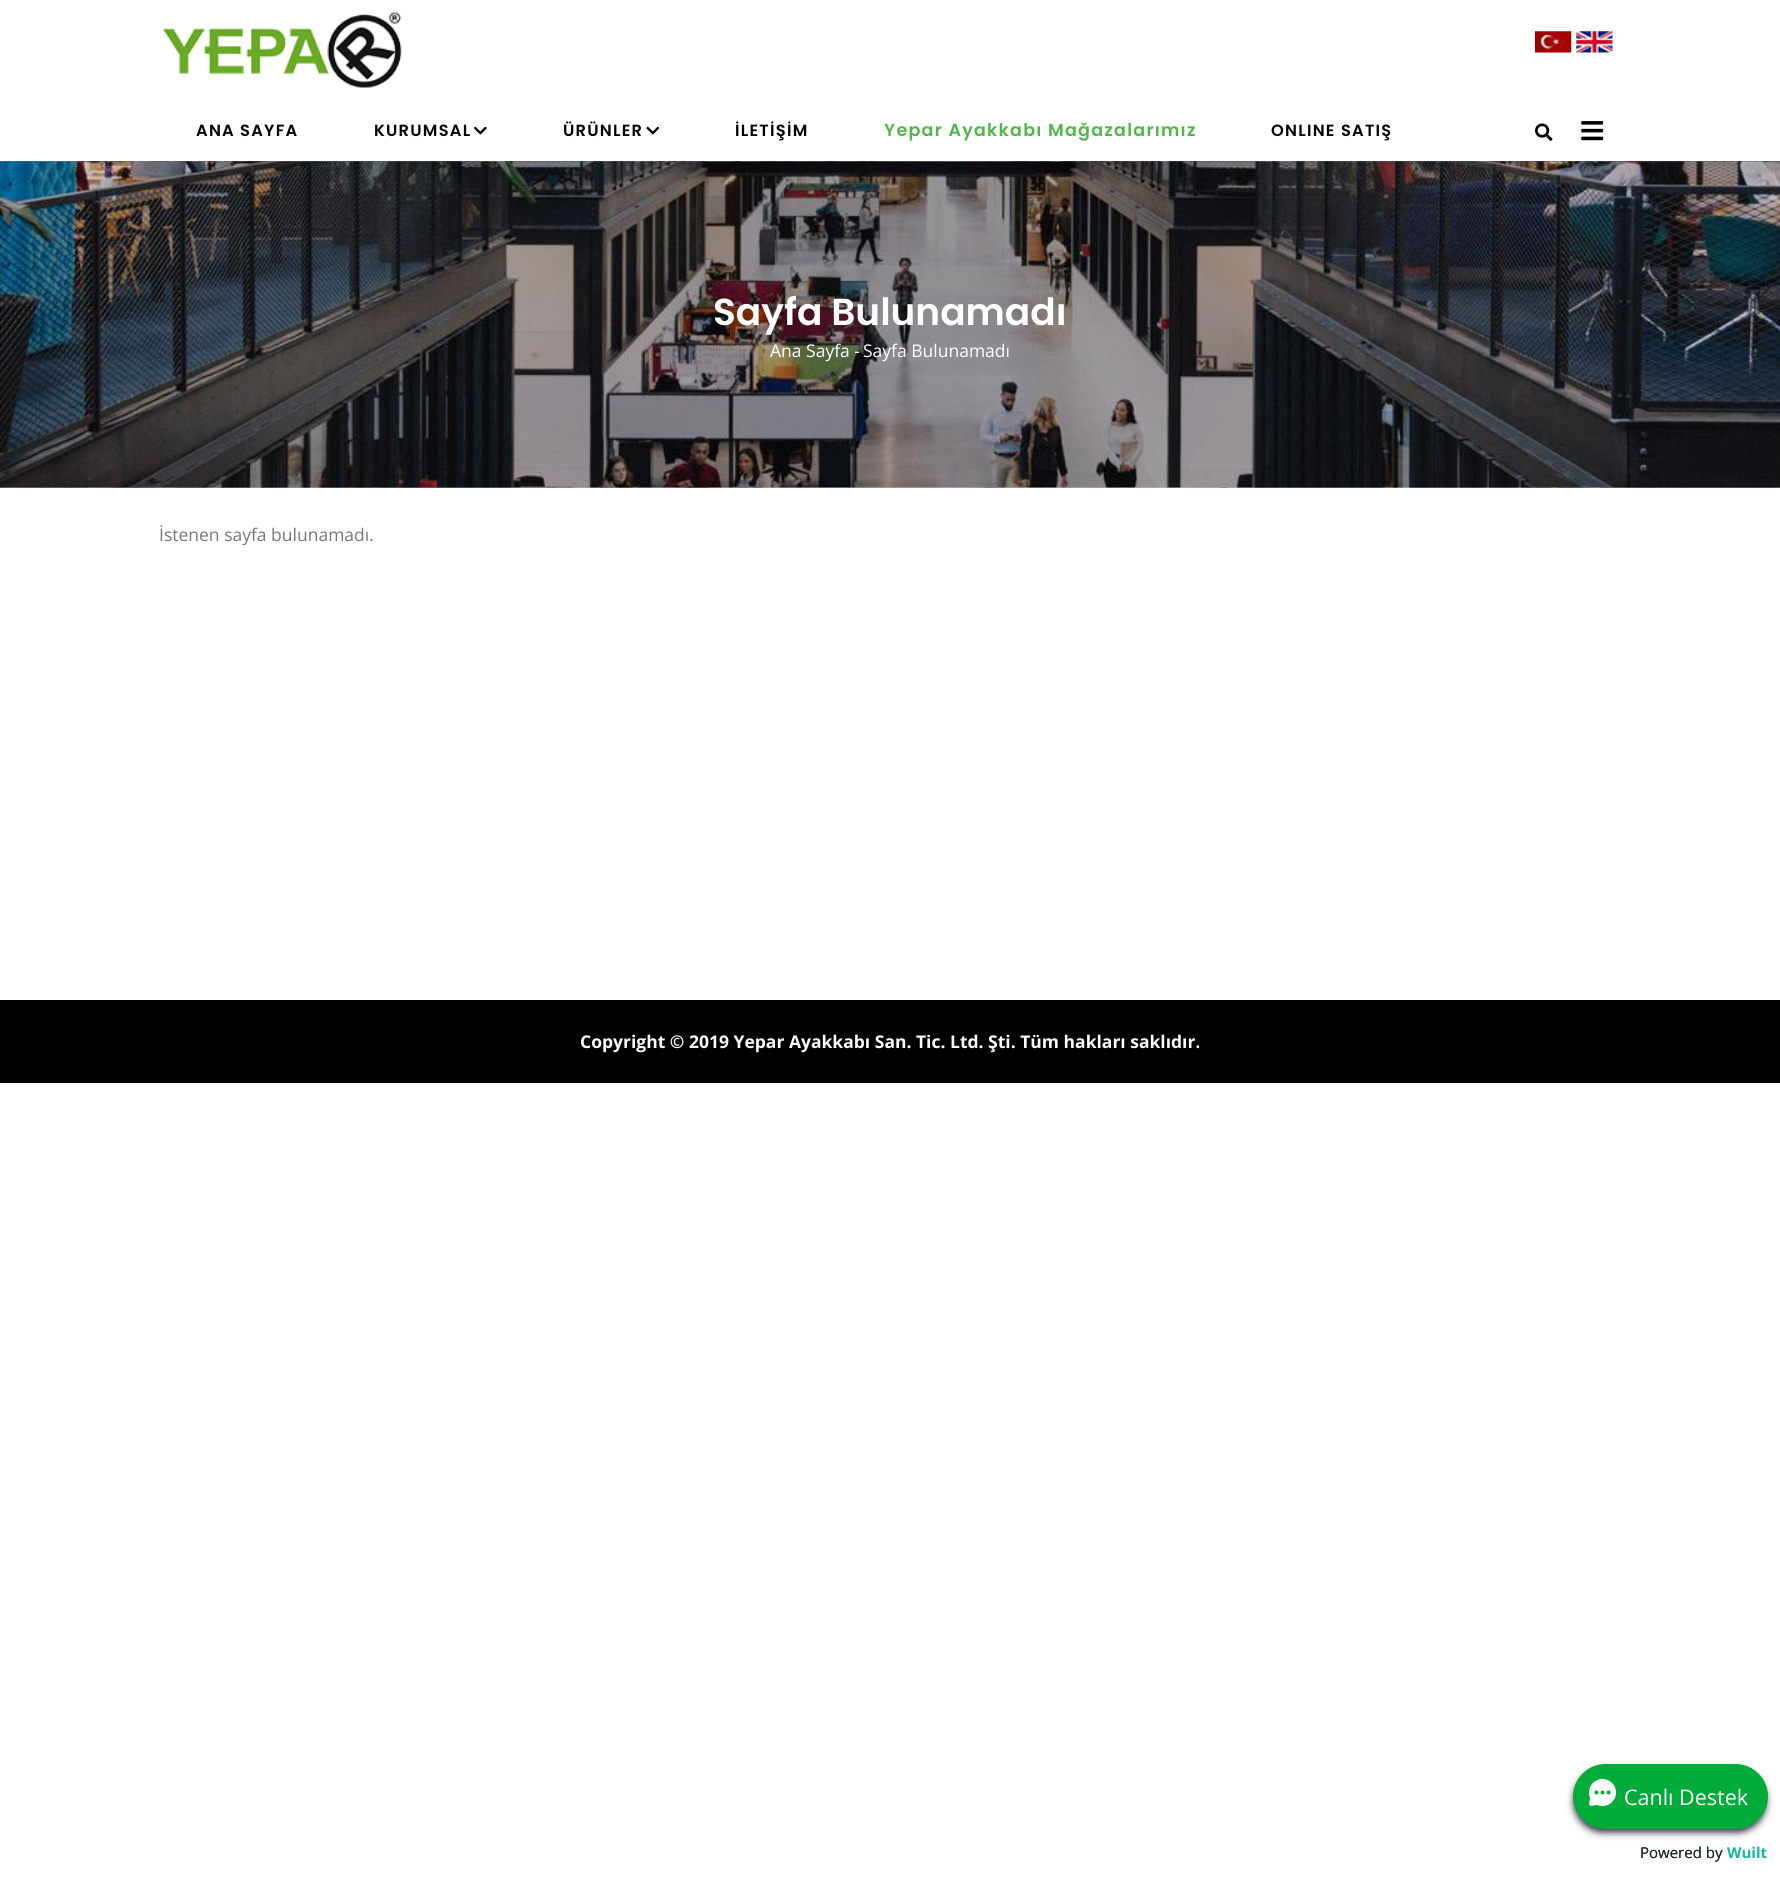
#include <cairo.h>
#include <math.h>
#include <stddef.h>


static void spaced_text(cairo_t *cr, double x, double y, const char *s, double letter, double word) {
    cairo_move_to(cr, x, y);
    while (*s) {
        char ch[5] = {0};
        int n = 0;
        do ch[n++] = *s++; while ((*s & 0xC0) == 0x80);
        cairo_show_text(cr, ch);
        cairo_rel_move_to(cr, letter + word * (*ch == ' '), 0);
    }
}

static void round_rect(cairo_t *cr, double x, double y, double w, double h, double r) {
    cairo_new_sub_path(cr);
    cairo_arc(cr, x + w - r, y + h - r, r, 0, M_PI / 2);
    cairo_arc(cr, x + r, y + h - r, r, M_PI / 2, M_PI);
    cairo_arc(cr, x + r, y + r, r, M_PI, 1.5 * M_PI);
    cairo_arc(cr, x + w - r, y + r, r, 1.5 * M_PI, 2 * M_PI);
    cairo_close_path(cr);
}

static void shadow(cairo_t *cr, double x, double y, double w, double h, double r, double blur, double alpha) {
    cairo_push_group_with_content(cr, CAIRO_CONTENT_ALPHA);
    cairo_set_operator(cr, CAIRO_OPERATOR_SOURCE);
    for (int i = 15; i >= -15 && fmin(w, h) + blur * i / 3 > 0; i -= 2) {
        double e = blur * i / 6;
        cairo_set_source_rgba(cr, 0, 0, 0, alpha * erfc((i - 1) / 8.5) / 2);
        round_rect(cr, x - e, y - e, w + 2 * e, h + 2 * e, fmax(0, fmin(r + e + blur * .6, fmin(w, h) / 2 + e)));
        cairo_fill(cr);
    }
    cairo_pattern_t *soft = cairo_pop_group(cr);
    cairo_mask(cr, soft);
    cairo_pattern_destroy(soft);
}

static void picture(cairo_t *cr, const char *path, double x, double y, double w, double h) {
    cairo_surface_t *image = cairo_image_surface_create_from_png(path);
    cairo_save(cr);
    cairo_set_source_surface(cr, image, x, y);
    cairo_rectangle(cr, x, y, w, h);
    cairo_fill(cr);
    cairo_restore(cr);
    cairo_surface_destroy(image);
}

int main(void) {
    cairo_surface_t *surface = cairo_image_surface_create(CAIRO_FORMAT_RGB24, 1780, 1878);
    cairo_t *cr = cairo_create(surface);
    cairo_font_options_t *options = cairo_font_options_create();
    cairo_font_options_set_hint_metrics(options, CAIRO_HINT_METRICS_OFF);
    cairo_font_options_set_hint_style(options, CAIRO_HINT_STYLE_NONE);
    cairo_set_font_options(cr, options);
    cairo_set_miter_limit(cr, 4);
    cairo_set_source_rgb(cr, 1, 1, 1);
    cairo_paint(cr);
    picture(cr, "img1.png", 162, 12, 240, 76);
    picture(cr, "img2.png", 1535, 31, 37, 22);
    picture(cr, "img3.png", 1576, 31, 37, 22);
    cairo_select_font_face(cr, "Poppins SemiBold", CAIRO_FONT_SLANT_NORMAL, CAIRO_FONT_WEIGHT_NORMAL);
    cairo_set_font_size(cr, 16.25);
    cairo_set_source_rgb(cr, 0, 0, 0);
    spaced_text(cr, 196, 136, "ANA SAYFA", 1.25, 0);
    spaced_text(cr, 374, 136, "KURUMSAL", 1.25, 0);
    picture(cr, "img4.png", 474, 126, 13, 9);
    spaced_text(cr, 563, 136, "ÜRÜNLER", 1.25, 0);
    picture(cr, "img5.png", 646, 126, 14, 9);
    spaced_text(cr, 735, 136, "İLETİŞİM", 1.25, 0);
    cairo_set_font_size(cr, 17.5);
    cairo_set_source_rgb(cr, 0.31, 0.722, 0.282);
    spaced_text(cr, 884, 136, "Yepar Ayakkabı Mağazalarımız", 1.25, 0);
    cairo_set_font_size(cr, 16.25);
    cairo_set_source_rgb(cr, 0, 0, 0);
    spaced_text(cr, 1271, 136, "ONLINE SATIŞ", 1.25, 0);
    picture(cr, "img6.png", 1535, 123, 18, 18);
    picture(cr, "img7.png", 1581, 121, 23, 20);
    picture(cr, "img8.png", 0, 161, 1780, 327);
    picture(cr, "img9.png", 0, 161, 1780, 327);
    cairo_set_font_size(cr, 37.5);
    cairo_set_source_rgb(cr, 1, 1, 1);
    cairo_move_to(cr, 713, 325);
    cairo_show_text(cr, "Sayfa Bulunamadı");
    cairo_select_font_face(cr, "Open Sans", CAIRO_FONT_SLANT_NORMAL, CAIRO_FONT_WEIGHT_NORMAL);
    cairo_set_font_size(cr, 17.5);
    cairo_move_to(cr, 770, 357);
    cairo_show_text(cr, "Ana Sayfa -");
    cairo_move_to(cr, 863, 357);
    cairo_show_text(cr, "Sayfa Bulunamadı");
    cairo_set_source_rgb(cr, 0.467, 0.467, 0.467);
    cairo_move_to(cr, 159, 541);
    cairo_show_text(cr, "İstenen sayfa bulunamadı.");
    cairo_set_source_rgb(cr, 0, 0, 0);
    cairo_rectangle(cr, 0, 1000, 1780, 83);
    cairo_fill(cr);
    cairo_select_font_face(cr, "Open Sans", CAIRO_FONT_SLANT_NORMAL, CAIRO_FONT_WEIGHT_BOLD);
    cairo_set_source_rgb(cr, 1, 1, 1);
    cairo_move_to(cr, 580, 1048);
    cairo_show_text(cr, "Copyright © 2019 Yepar Ayakkabı San. Tic. Ltd. Şti. Tüm hakları saklıdır.");
    cairo_set_source_rgb(cr, 0.063, 0.094, 0.157);
    shadow(cr, 1575, 1771, 190, 60, 30, 4, 0.7);
    shadow(cr, 1575, 1771, 190, 60, 30, 4, 0.7);
    cairo_set_source_rgb(cr, 0, 0.671, 0.224);
    round_rect(cr, 1573, 1764, 195, 65, 32.5);
    cairo_fill(cr);
    picture(cr, "img10.png", 1589, 1779, 27, 27);
    cairo_select_font_face(cr, "Open Sans", CAIRO_FONT_SLANT_NORMAL, CAIRO_FONT_WEIGHT_NORMAL);
    cairo_set_font_size(cr, 21.5);
    cairo_set_source_rgb(cr, 1, 1, 1);
    cairo_move_to(cr, 1624, 1805);
    cairo_show_text(cr, "Canlı Destek");
    cairo_set_font_size(cr, 15);
    cairo_set_source_rgb(cr, 0.114, 0.161, 0.224);
    cairo_move_to(cr, 1640, 1858);
    cairo_show_text(cr, "Powered by");
    cairo_move_to(cr, 1640, 1858);
    cairo_show_text(cr, "Powered by");
    cairo_select_font_face(cr, "Open Sans", CAIRO_FONT_SLANT_NORMAL, CAIRO_FONT_WEIGHT_BOLD);
    cairo_set_source_rgb(cr, 0.082, 0.718, 0.62);
    cairo_move_to(cr, 1727, 1858);
    cairo_show_text(cr, "Wuilt");
    cairo_surface_write_to_png(surface, "page.png");
    cairo_font_options_destroy(options);
    cairo_destroy(cr);
    cairo_surface_destroy(surface);
    return 0;
}
